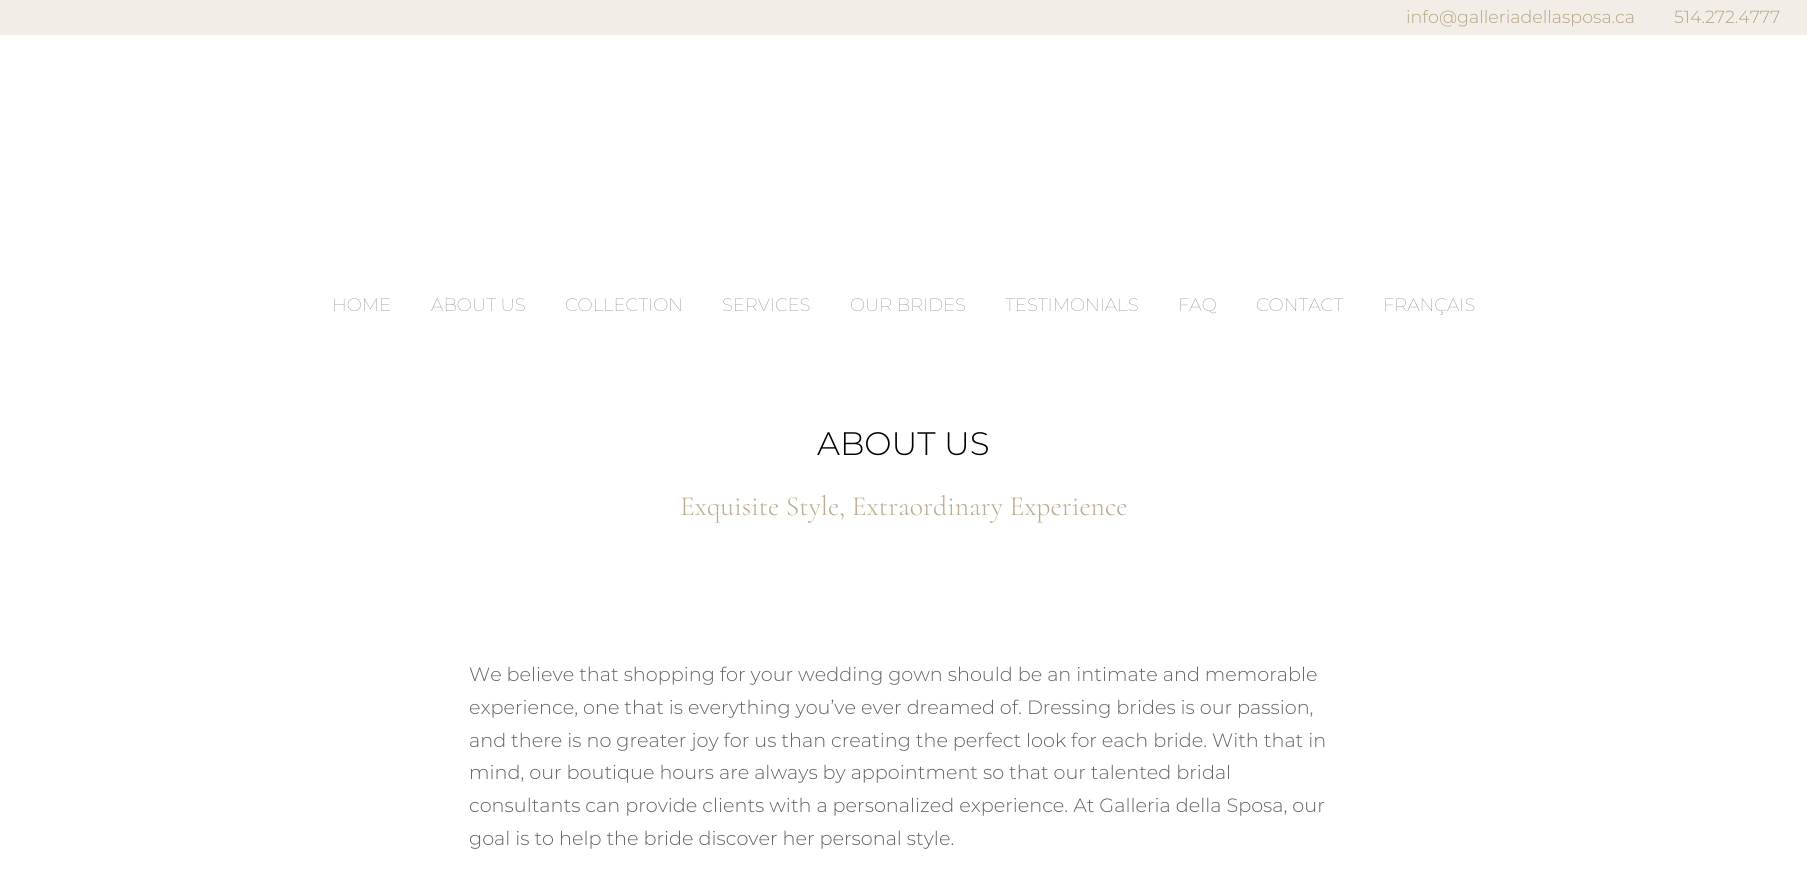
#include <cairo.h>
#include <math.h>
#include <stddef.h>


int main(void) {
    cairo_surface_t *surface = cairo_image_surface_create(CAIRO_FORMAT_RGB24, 1807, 887);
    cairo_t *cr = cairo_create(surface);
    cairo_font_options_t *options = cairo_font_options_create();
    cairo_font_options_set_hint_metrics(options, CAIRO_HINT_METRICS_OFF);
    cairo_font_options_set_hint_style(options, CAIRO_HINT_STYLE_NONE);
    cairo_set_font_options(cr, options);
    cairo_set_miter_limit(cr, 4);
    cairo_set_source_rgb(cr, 1, 1, 1);
    cairo_paint(cr);
    cairo_set_source_rgb(cr, 0.949, 0.933, 0.906);
    cairo_rectangle(cr, 0, 0, 1807, 35);
    cairo_fill(cr);
    cairo_select_font_face(cr, "Montserrat Light", CAIRO_FONT_SLANT_NORMAL, CAIRO_FONT_WEIGHT_NORMAL);
    cairo_set_font_size(cr, 17.5);
    cairo_set_source_rgb(cr, 0.702, 0.639, 0.522);
    cairo_move_to(cr, 1406, 23);
    cairo_show_text(cr, "info@galleriadellasposa.ca");
    cairo_move_to(cr, 1674, 23);
    cairo_show_text(cr, "514.272.4777");
    cairo_select_font_face(cr, "Montserrat Thin", CAIRO_FONT_SLANT_NORMAL, CAIRO_FONT_WEIGHT_NORMAL);
    cairo_set_font_size(cr, 18);
    cairo_set_source_rgb(cr, 0.471, 0.463, 0.463);
    cairo_move_to(cr, 332, 311);
    cairo_show_text(cr, "HOME");
    cairo_move_to(cr, 431, 311);
    cairo_show_text(cr, "ABOUT US");
    cairo_move_to(cr, 565, 311);
    cairo_show_text(cr, "COLLECTION");
    cairo_move_to(cr, 722, 311);
    cairo_show_text(cr, "SERVICES");
    cairo_move_to(cr, 850, 311);
    cairo_show_text(cr, "OUR BRIDES");
    cairo_move_to(cr, 1005, 311);
    cairo_show_text(cr, "TESTIMONIALS");
    cairo_move_to(cr, 1178, 311);
    cairo_show_text(cr, "FAQ");
    cairo_move_to(cr, 1256, 311);
    cairo_show_text(cr, "CONTACT");
    cairo_move_to(cr, 1383, 311);
    cairo_show_text(cr, "FRANÇAIS");
    cairo_select_font_face(cr, "Montserrat Light", CAIRO_FONT_SLANT_NORMAL, CAIRO_FONT_WEIGHT_NORMAL);
    cairo_set_font_size(cr, 32.5);
    cairo_set_source_rgb(cr, 0, 0, 0);
    cairo_move_to(cr, 817, 455);
    cairo_show_text(cr, "ABOUT US");
    cairo_select_font_face(cr, "Cormorant Light", CAIRO_FONT_SLANT_NORMAL, CAIRO_FONT_WEIGHT_NORMAL);
    cairo_set_font_size(cr, 27.75);
    cairo_set_source_rgb(cr, 0.733, 0.675, 0.569);
    cairo_move_to(cr, 680, 515);
    cairo_show_text(cr, "Exquisite Style, Extraordinary Experience");
    cairo_select_font_face(cr, "Montserrat Light", CAIRO_FONT_SLANT_NORMAL, CAIRO_FONT_WEIGHT_NORMAL);
    cairo_set_font_size(cr, 19.25);
    cairo_set_source_rgb(cr, 0.388, 0.388, 0.388);
    cairo_move_to(cr, 469, 681);
    cairo_show_text(cr, "We believe that shopping for your wedding gown should be an intimate and memorable");
    cairo_move_to(cr, 469, 714);
    cairo_show_text(cr, "experience, one that is everything you’ve ever dreamed of. Dressing brides is our passion,");
    cairo_move_to(cr, 469, 747);
    cairo_show_text(cr, "and there is no greater joy for us than creating the perfect look for each bride. With that in");
    cairo_move_to(cr, 469, 779);
    cairo_show_text(cr, "mind, our boutique hours are always by appointment so that our talented bridal");
    cairo_move_to(cr, 469, 812);
    cairo_show_text(cr, "consultants can provide clients with a personalized experience. At Galleria della Sposa, our");
    cairo_move_to(cr, 469, 845);
    cairo_show_text(cr, "goal is to help the bride discover her personal style.");
    cairo_surface_write_to_png(surface, "page.png");
    cairo_font_options_destroy(options);
    cairo_destroy(cr);
    cairo_surface_destroy(surface);
    return 0;
}
